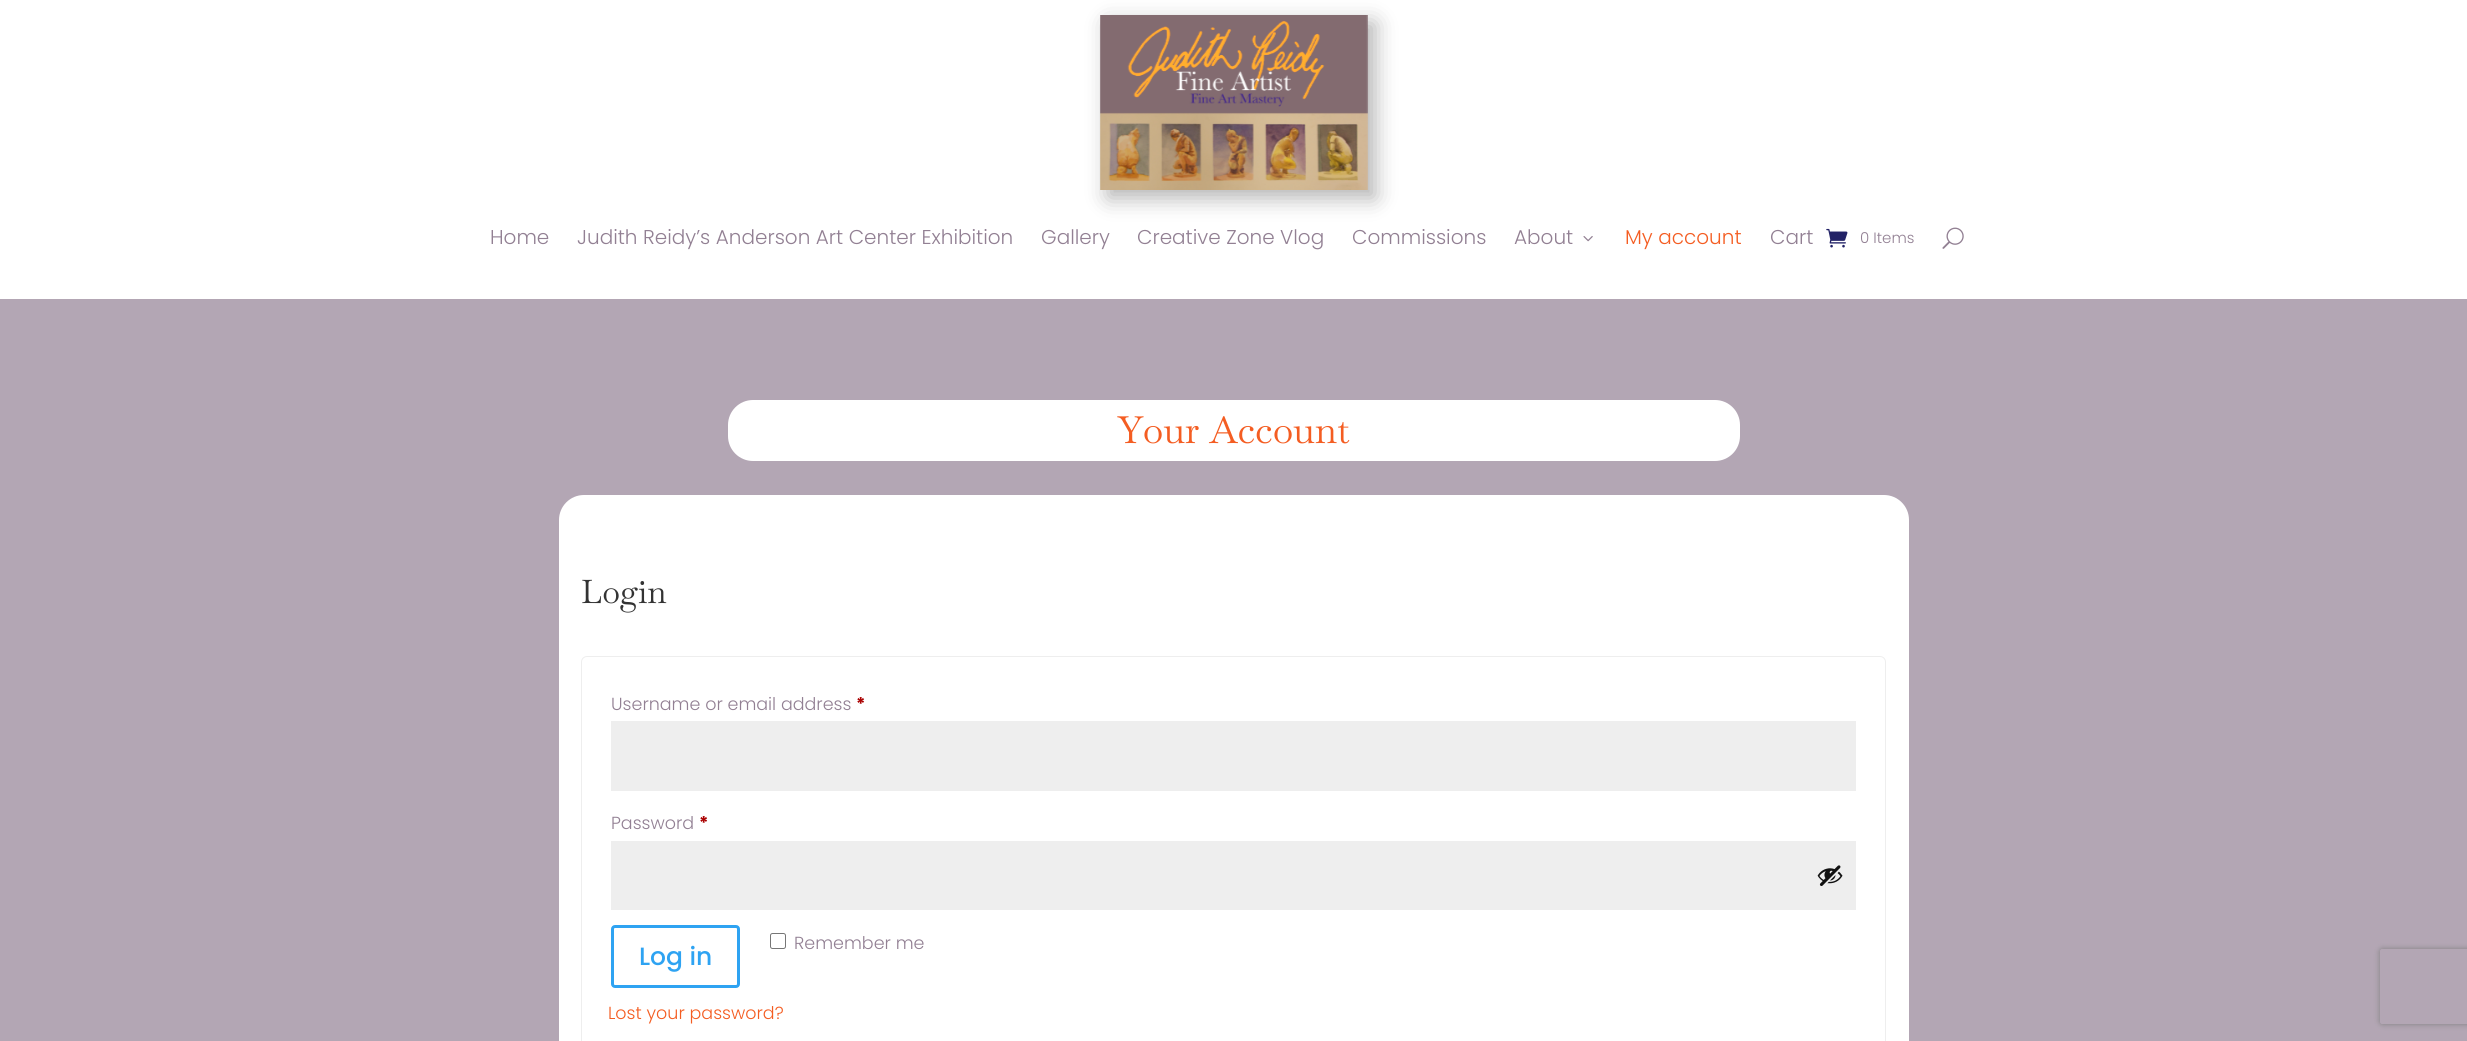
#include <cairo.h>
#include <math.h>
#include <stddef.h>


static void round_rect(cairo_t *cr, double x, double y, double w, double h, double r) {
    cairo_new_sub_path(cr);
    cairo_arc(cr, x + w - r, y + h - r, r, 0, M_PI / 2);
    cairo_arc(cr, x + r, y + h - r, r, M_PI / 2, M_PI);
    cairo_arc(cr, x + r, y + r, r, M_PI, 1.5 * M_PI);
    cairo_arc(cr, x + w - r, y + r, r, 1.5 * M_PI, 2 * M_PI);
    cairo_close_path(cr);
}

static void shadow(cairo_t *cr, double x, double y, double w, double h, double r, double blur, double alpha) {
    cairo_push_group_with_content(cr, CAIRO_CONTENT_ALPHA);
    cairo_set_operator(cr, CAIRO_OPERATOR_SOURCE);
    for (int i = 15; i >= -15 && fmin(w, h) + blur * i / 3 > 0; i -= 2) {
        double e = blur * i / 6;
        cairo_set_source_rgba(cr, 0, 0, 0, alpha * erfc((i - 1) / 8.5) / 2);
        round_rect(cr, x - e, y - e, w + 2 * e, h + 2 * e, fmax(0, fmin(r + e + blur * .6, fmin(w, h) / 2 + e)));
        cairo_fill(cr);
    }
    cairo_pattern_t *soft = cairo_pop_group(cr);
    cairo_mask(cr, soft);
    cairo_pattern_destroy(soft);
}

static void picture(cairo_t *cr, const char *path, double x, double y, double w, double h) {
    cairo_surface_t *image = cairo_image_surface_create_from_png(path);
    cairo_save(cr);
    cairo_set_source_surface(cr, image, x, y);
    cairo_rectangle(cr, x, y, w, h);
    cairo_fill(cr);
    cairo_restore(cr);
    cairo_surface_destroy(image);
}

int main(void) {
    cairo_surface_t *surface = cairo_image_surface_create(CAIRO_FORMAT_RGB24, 2467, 1041);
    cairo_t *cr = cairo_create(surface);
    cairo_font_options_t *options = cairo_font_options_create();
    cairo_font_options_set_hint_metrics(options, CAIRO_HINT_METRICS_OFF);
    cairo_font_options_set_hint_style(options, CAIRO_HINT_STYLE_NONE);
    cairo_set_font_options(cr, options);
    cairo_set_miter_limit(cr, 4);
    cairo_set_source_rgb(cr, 1, 1, 1);
    cairo_paint(cr);
    cairo_set_source_rgb(cr, 0, 0, 0);
    shadow(cr, 1108, 23, 267, 175, 0, 11, 0.3);
    picture(cr, "img1.png", 1100, 15, 268, 175);
    cairo_select_font_face(cr, "Poppins Light", CAIRO_FONT_SLANT_NORMAL, CAIRO_FONT_WEIGHT_NORMAL);
    cairo_set_font_size(cr, 20);
    cairo_set_source_rgb(cr, 0.573, 0.502, 0.576);
    cairo_move_to(cr, 490, 244);
    cairo_show_text(cr, "Home");
    cairo_move_to(cr, 577, 244);
    cairo_show_text(cr, "Judith Reidy’s Anderson Art Center Exhibition");
    cairo_move_to(cr, 1041, 244);
    cairo_show_text(cr, "Gallery");
    cairo_move_to(cr, 1137, 244);
    cairo_show_text(cr, "Creative Zone Vlog");
    cairo_move_to(cr, 1352, 244);
    cairo_show_text(cr, "Commissions");
    cairo_move_to(cr, 1514, 244);
    cairo_show_text(cr, "About");
    picture(cr, "img2.png", 1583, 236, 10, 6);
    cairo_set_source_rgb(cr, 0.957, 0.365, 0.133);
    cairo_move_to(cr, 1625, 244);
    cairo_show_text(cr, "My account");
    cairo_set_source_rgb(cr, 0.573, 0.502, 0.576);
    cairo_move_to(cr, 1770, 244);
    cairo_show_text(cr, "Cart");
    picture(cr, "img3.png", 1826, 228, 22, 20);
    cairo_set_font_size(cr, 15);
    cairo_move_to(cr, 1860, 243);
    cairo_show_text(cr, "0 Items");
    picture(cr, "img4.png", 1942, 227, 22, 22);
    cairo_set_source_rgb(cr, 0.702, 0.651, 0.706);
    cairo_rectangle(cr, 0, 299, 2467, 742);
    cairo_fill(cr);
    cairo_set_source_rgb(cr, 1, 1, 1);
    round_rect(cr, 728, 400, 1012, 61, 25);
    cairo_fill(cr);
    cairo_select_font_face(cr, "Baskervville", CAIRO_FONT_SLANT_NORMAL, CAIRO_FONT_WEIGHT_NORMAL);
    cairo_set_font_size(cr, 37.5);
    cairo_set_source_rgb(cr, 0.957, 0.365, 0.133);
    cairo_move_to(cr, 1118, 443);
    cairo_show_text(cr, "Your Account");
    cairo_set_source_rgb(cr, 1, 1, 1);
    round_rect(cr, 559, 495, 1350, 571, 25);
    cairo_fill(cr);
    cairo_set_font_size(cr, 32.5);
    cairo_set_source_rgb(cr, 0.2, 0.2, 0.2);
    cairo_move_to(cr, 581, 603);
    cairo_show_text(cr, "Login");
    round_rect(cr, 581.5, 656.5, 1304, 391, 5.5);
    cairo_set_source_rgb(cr, 0.933, 0.933, 0.933);
    cairo_set_line_width(cr, 1);
    cairo_stroke(cr);
    cairo_select_font_face(cr, "Poppins Light", CAIRO_FONT_SLANT_NORMAL, CAIRO_FONT_WEIGHT_NORMAL);
    cairo_set_font_size(cr, 17.5);
    cairo_set_source_rgb(cr, 0.573, 0.502, 0.576);
    cairo_move_to(cr, 611, 710);
    cairo_show_text(cr, "Username or email address");
    cairo_select_font_face(cr, "Poppins", CAIRO_FONT_SLANT_NORMAL, CAIRO_FONT_WEIGHT_BOLD);
    cairo_set_source_rgb(cr, 0.667, 0, 0);
    cairo_move_to(cr, 856, 710);
    cairo_show_text(cr, "*");
    cairo_set_source_rgb(cr, 0.933, 0.933, 0.933);
    cairo_rectangle(cr, 611, 721, 1245, 70);
    cairo_fill(cr);
    cairo_select_font_face(cr, "Poppins Light", CAIRO_FONT_SLANT_NORMAL, CAIRO_FONT_WEIGHT_NORMAL);
    cairo_set_source_rgb(cr, 0.573, 0.502, 0.576);
    cairo_move_to(cr, 611, 829);
    cairo_show_text(cr, "Password");
    cairo_select_font_face(cr, "Poppins", CAIRO_FONT_SLANT_NORMAL, CAIRO_FONT_WEIGHT_BOLD);
    cairo_set_source_rgb(cr, 0.667, 0, 0);
    cairo_move_to(cr, 699, 829);
    cairo_show_text(cr, "*");
    cairo_set_source_rgb(cr, 0.933, 0.933, 0.933);
    cairo_rectangle(cr, 611, 841, 1245, 69);
    cairo_fill(cr);
    picture(cr, "img5.png", 1817, 865, 26, 21);
    round_rect(cr, 770.5, 933.5, 15, 15, 2);
    cairo_set_source_rgb(cr, 0.463, 0.463, 0.463);
    cairo_stroke(cr);
    cairo_select_font_face(cr, "Poppins Light", CAIRO_FONT_SLANT_NORMAL, CAIRO_FONT_WEIGHT_NORMAL);
    cairo_set_source_rgb(cr, 0.573, 0.502, 0.576);
    cairo_move_to(cr, 794, 949);
    cairo_show_text(cr, "Remember me");
    round_rect(cr, 612.5, 926.5, 126, 60, 2.5);
    cairo_set_source_rgb(cr, 0.18, 0.639, 0.949);
    cairo_set_line_width(cr, 3);
    cairo_stroke(cr);
    cairo_select_font_face(cr, "Poppins Medium", CAIRO_FONT_SLANT_NORMAL, CAIRO_FONT_WEIGHT_NORMAL);
    cairo_set_font_size(cr, 25);
    cairo_move_to(cr, 639, 965);
    cairo_show_text(cr, "Log in");
    cairo_select_font_face(cr, "Poppins Light", CAIRO_FONT_SLANT_NORMAL, CAIRO_FONT_WEIGHT_NORMAL);
    cairo_set_font_size(cr, 17.5);
    cairo_set_source_rgb(cr, 0.957, 0.365, 0.133);
    cairo_move_to(cr, 608, 1019);
    cairo_show_text(cr, "Lost your password?");
    cairo_save(cr);
    cairo_set_fill_rule(cr, CAIRO_FILL_RULE_EVEN_ODD);
    cairo_new_path(cr);
    cairo_move_to(cr, 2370, 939);
    cairo_line_to(cr, 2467, 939);
    cairo_line_to(cr, 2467, 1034);
    cairo_line_to(cr, 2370, 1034);
    cairo_close_path(cr);
    cairo_move_to(cr, 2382.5, 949);
    cairo_line_to(cr, 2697.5, 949);
    cairo_curve_to(cr, 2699, 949, 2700, 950, 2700, 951.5);
    cairo_line_to(cr, 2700, 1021.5);
    cairo_curve_to(cr, 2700, 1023, 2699, 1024, 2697.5, 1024);
    cairo_line_to(cr, 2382.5, 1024);
    cairo_curve_to(cr, 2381, 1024, 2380, 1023, 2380, 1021.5);
    cairo_line_to(cr, 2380, 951.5);
    cairo_curve_to(cr, 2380, 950, 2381, 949, 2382.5, 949);
    cairo_close_path(cr);
    cairo_clip(cr);
    cairo_set_source_rgb(cr, 0.502, 0.502, 0.502);
    shadow(cr, 2380, 949, 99, 75, 2.5, 3, 1);
    cairo_restore(cr);
    cairo_surface_write_to_png(surface, "page.png");
    cairo_font_options_destroy(options);
    cairo_destroy(cr);
    cairo_surface_destroy(surface);
    return 0;
}
